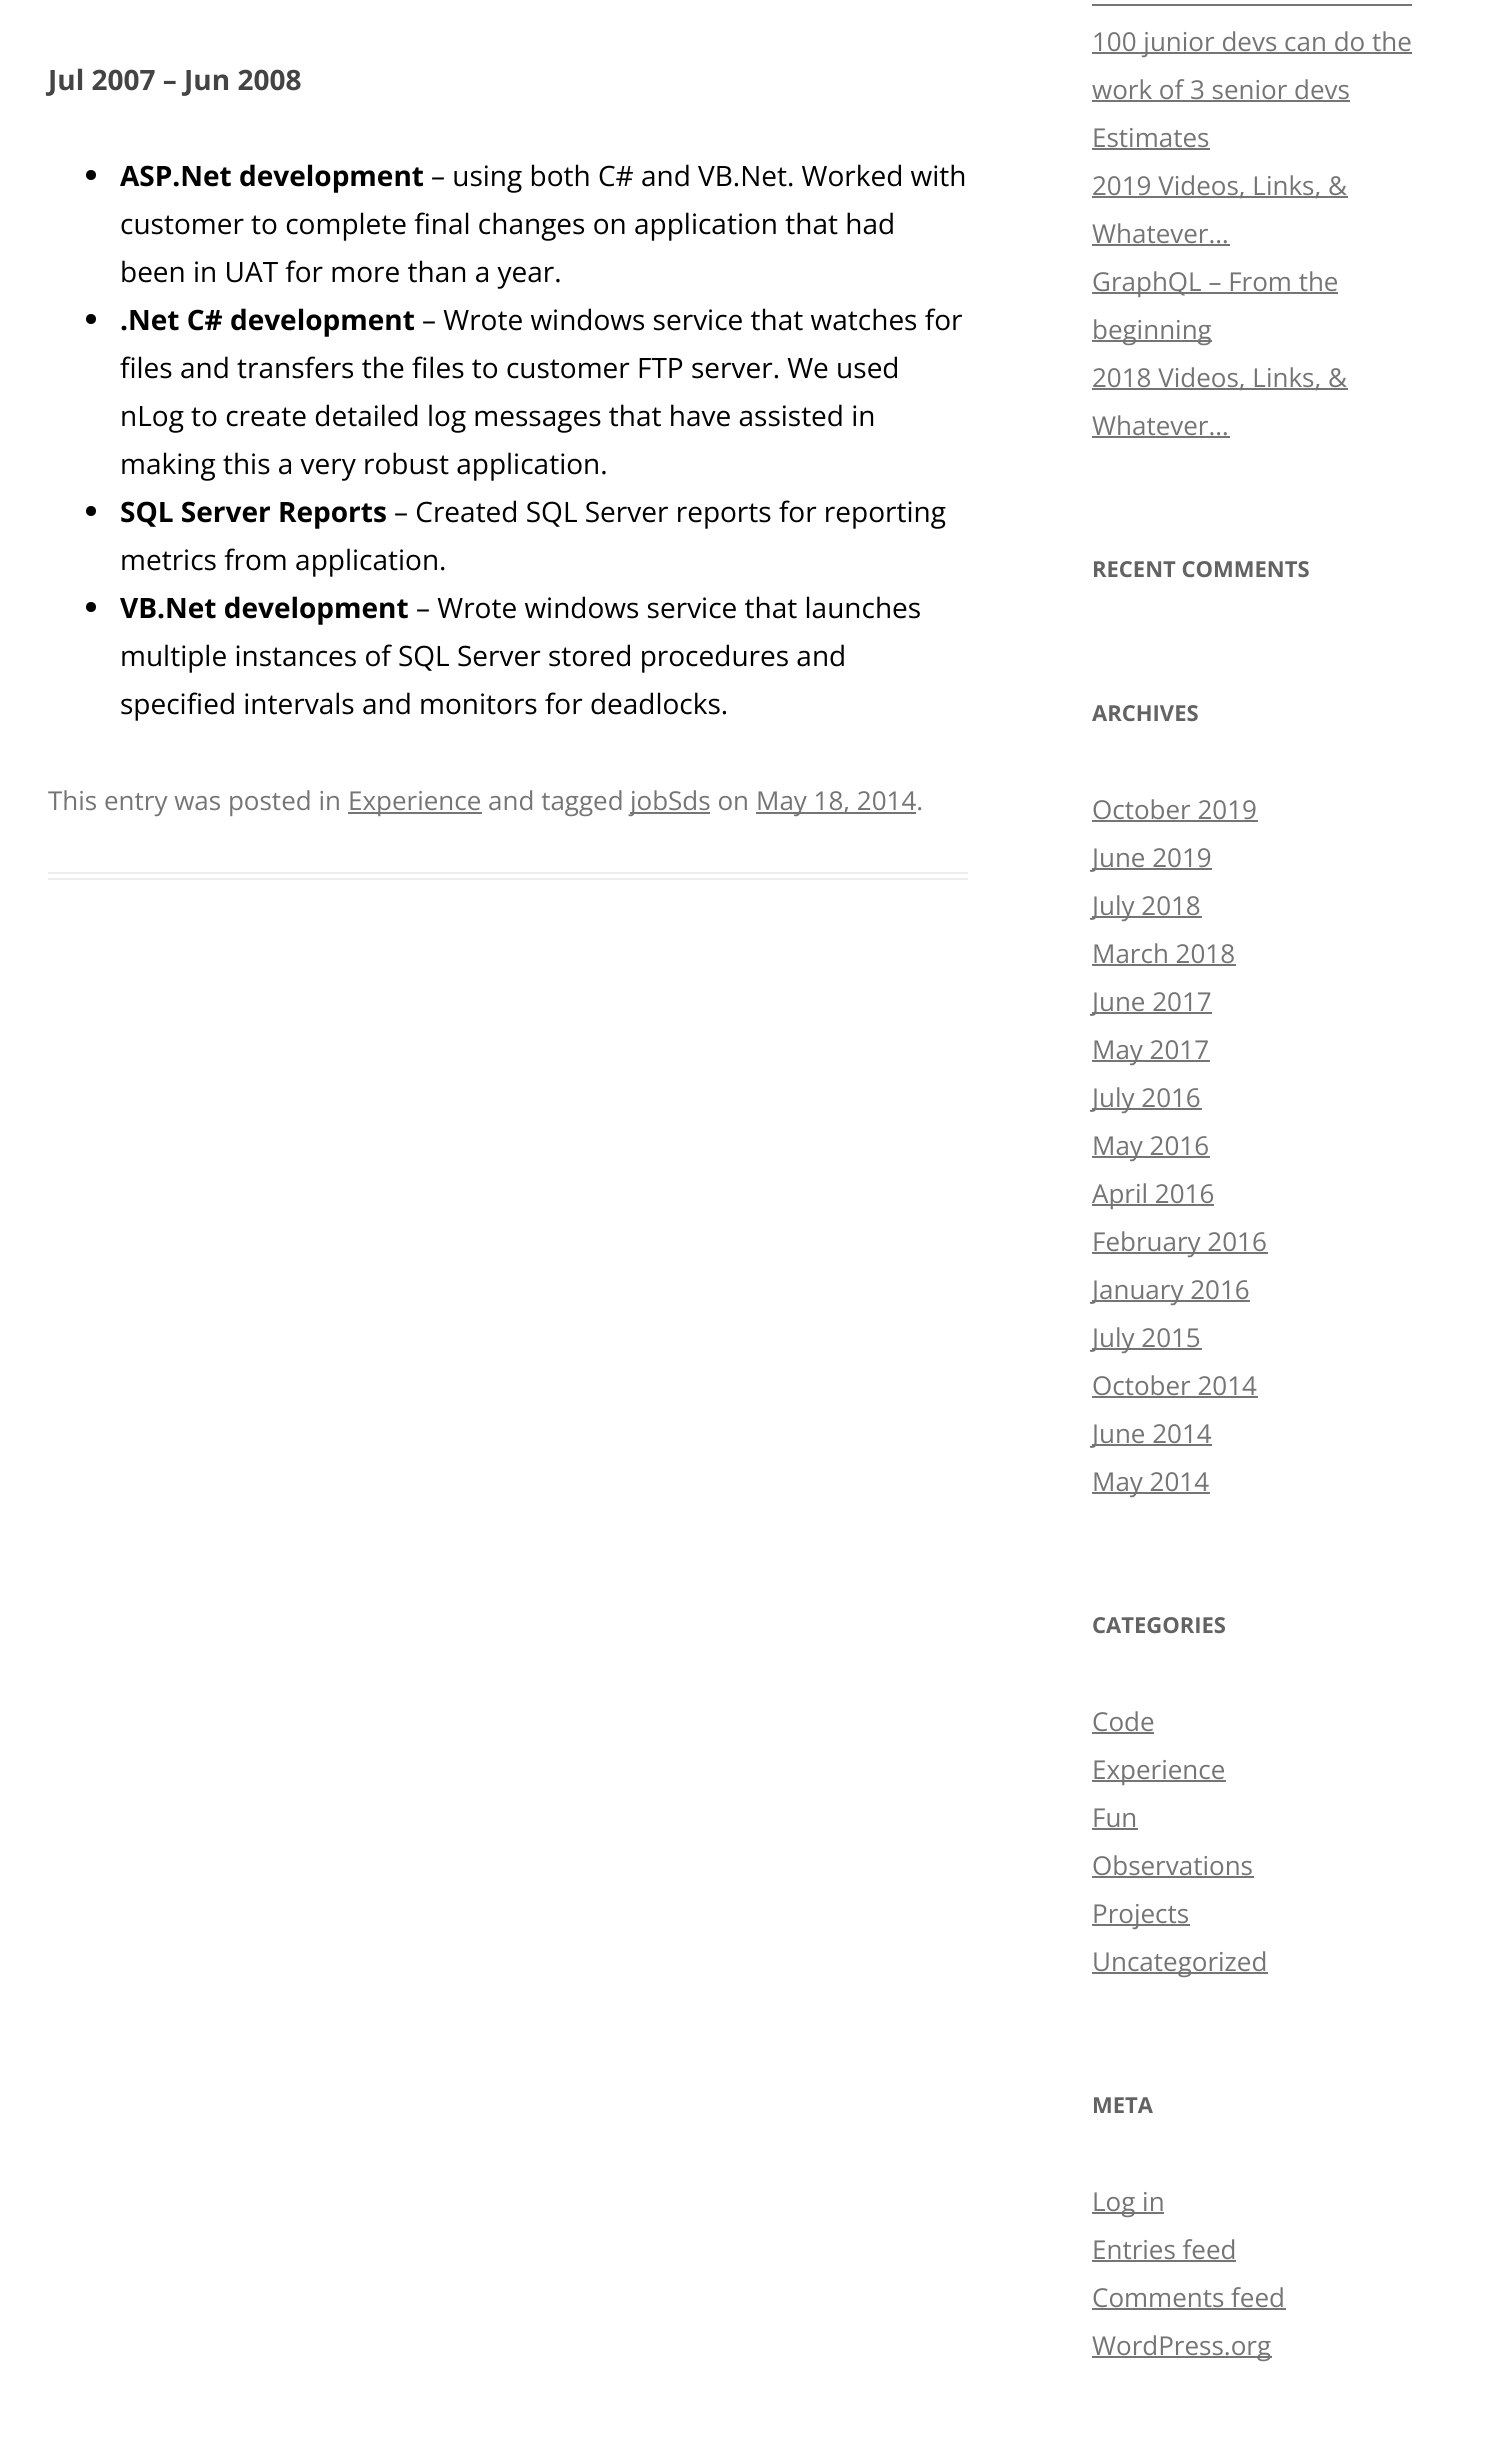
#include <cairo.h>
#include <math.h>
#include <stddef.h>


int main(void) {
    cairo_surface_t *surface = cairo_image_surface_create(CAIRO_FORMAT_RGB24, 1508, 2441);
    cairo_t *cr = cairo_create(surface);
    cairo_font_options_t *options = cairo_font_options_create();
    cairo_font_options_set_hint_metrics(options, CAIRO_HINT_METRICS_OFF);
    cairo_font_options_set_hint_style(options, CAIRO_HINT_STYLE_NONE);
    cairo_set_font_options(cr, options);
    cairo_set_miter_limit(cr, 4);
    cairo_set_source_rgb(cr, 1, 1, 1);
    cairo_paint(cr);
    cairo_set_source_rgb(cr, 0.929, 0.929, 0.929);
    cairo_rectangle(cr, 48, 872, 920, 2);
    cairo_fill(cr);
    cairo_rectangle(cr, 48, 878, 920, 2);
    cairo_fill(cr);
    cairo_select_font_face(cr, "Open Sans", CAIRO_FONT_SLANT_NORMAL, CAIRO_FONT_WEIGHT_BOLD);
    cairo_set_font_size(cr, 28);
    cairo_set_source_rgb(cr, 0.267, 0.267, 0.267);
    cairo_move_to(cr, 48, 90);
    cairo_show_text(cr, "Jul 2007 – Jun 2008");
    cairo_set_source_rgb(cr, 0, 0, 0);
    cairo_new_path(cr);
    cairo_arc(cr, 91, 175, 5, 0, 2 * M_PI);
    cairo_fill(cr);
    cairo_move_to(cr, 120, 186);
    cairo_show_text(cr, "ASP.Net development");
    cairo_select_font_face(cr, "Open Sans", CAIRO_FONT_SLANT_NORMAL, CAIRO_FONT_WEIGHT_NORMAL);
    cairo_move_to(cr, 431, 186);
    cairo_show_text(cr, "– using both C# and VB.Net. Worked with");
    cairo_move_to(cr, 120, 234);
    cairo_show_text(cr, "customer to complete final changes on application that had");
    cairo_move_to(cr, 120, 282);
    cairo_show_text(cr, "been in UAT for more than a year.");
    cairo_new_path(cr);
    cairo_arc(cr, 91, 319, 5, 0, 2 * M_PI);
    cairo_fill(cr);
    cairo_select_font_face(cr, "Open Sans", CAIRO_FONT_SLANT_NORMAL, CAIRO_FONT_WEIGHT_BOLD);
    cairo_move_to(cr, 120, 330);
    cairo_show_text(cr, ".Net C# development");
    cairo_select_font_face(cr, "Open Sans", CAIRO_FONT_SLANT_NORMAL, CAIRO_FONT_WEIGHT_NORMAL);
    cairo_move_to(cr, 422, 330);
    cairo_show_text(cr, "– Wrote windows service that watches for");
    cairo_move_to(cr, 120, 378);
    cairo_show_text(cr, "files and transfers the files to customer FTP server. We used");
    cairo_move_to(cr, 120, 426);
    cairo_show_text(cr, "nLog to create detailed log messages that have assisted in");
    cairo_move_to(cr, 120, 474);
    cairo_show_text(cr, "making this a very robust application.");
    cairo_new_path(cr);
    cairo_arc(cr, 91, 511, 5, 0, 2 * M_PI);
    cairo_fill(cr);
    cairo_select_font_face(cr, "Open Sans", CAIRO_FONT_SLANT_NORMAL, CAIRO_FONT_WEIGHT_BOLD);
    cairo_move_to(cr, 120, 522);
    cairo_show_text(cr, "SQL Server Reports");
    cairo_select_font_face(cr, "Open Sans", CAIRO_FONT_SLANT_NORMAL, CAIRO_FONT_WEIGHT_NORMAL);
    cairo_move_to(cr, 394, 522);
    cairo_show_text(cr, "– Created SQL Server reports for reporting");
    cairo_move_to(cr, 120, 570);
    cairo_show_text(cr, "metrics from application.");
    cairo_new_path(cr);
    cairo_arc(cr, 91, 607, 5, 0, 2 * M_PI);
    cairo_fill(cr);
    cairo_select_font_face(cr, "Open Sans", CAIRO_FONT_SLANT_NORMAL, CAIRO_FONT_WEIGHT_BOLD);
    cairo_move_to(cr, 120, 618);
    cairo_show_text(cr, "VB.Net development");
    cairo_select_font_face(cr, "Open Sans", CAIRO_FONT_SLANT_NORMAL, CAIRO_FONT_WEIGHT_NORMAL);
    cairo_move_to(cr, 416, 618);
    cairo_show_text(cr, "– Wrote windows service that launches");
    cairo_move_to(cr, 120, 666);
    cairo_show_text(cr, "multiple instances of SQL Server stored procedures and");
    cairo_move_to(cr, 120, 714);
    cairo_show_text(cr, "specified intervals and monitors for deadlocks.");
    cairo_set_font_size(cr, 26);
    cairo_set_source_rgb(cr, 0.459, 0.459, 0.459);
    cairo_move_to(cr, 48, 810);
    cairo_show_text(cr, "This entry was posted in");
    cairo_rectangle(cr, 348, 812, 134, 2);
    cairo_fill(cr);
    cairo_move_to(cr, 348, 810);
    cairo_show_text(cr, "Experience and tagged");
    cairo_rectangle(cr, 630, 812, 80, 2);
    cairo_fill(cr);
    cairo_move_to(cr, 630, 810);
    cairo_show_text(cr, "jobSds on");
    cairo_rectangle(cr, 756, 812, 160, 2);
    cairo_fill(cr);
    cairo_move_to(cr, 756, 810);
    cairo_show_text(cr, "May 18, 2014.");
    cairo_rectangle(cr, 1092, 52, 320, 2);
    cairo_fill(cr);
    cairo_move_to(cr, 1092, 51);
    cairo_show_text(cr, "100 junior devs can do the");
    cairo_rectangle(cr, 1092, 4, 320, 2);
    cairo_fill(cr);
    cairo_move_to(cr, 1092, 99);
    cairo_show_text(cr, "work of 3 senior devs");
    cairo_rectangle(cr, 1092, 100, 258, 2);
    cairo_fill(cr);
    cairo_move_to(cr, 1092, 147);
    cairo_show_text(cr, "Estimates");
    cairo_rectangle(cr, 1092, 148, 118, 2);
    cairo_fill(cr);
    cairo_rectangle(cr, 1092, 196, 256, 2);
    cairo_fill(cr);
    cairo_move_to(cr, 1092, 195);
    cairo_show_text(cr, "2019 Videos, Links, &");
    cairo_move_to(cr, 1092, 243);
    cairo_show_text(cr, "Whatever…");
    cairo_rectangle(cr, 1092, 244, 138, 2);
    cairo_fill(cr);
    cairo_rectangle(cr, 1092, 292, 246, 2);
    cairo_fill(cr);
    cairo_move_to(cr, 1092, 291);
    cairo_show_text(cr, "GraphQL – From the");
    cairo_rectangle(cr, 1092, 340, 120, 2);
    cairo_fill(cr);
    cairo_move_to(cr, 1092, 339);
    cairo_show_text(cr, "beginning");
    cairo_rectangle(cr, 1092, 388, 256, 2);
    cairo_fill(cr);
    cairo_move_to(cr, 1092, 387);
    cairo_show_text(cr, "2018 Videos, Links, &");
    cairo_move_to(cr, 1092, 435);
    cairo_show_text(cr, "Whatever…");
    cairo_rectangle(cr, 1092, 436, 138, 2);
    cairo_fill(cr);
    cairo_select_font_face(cr, "Open Sans", CAIRO_FONT_SLANT_NORMAL, CAIRO_FONT_WEIGHT_BOLD);
    cairo_set_font_size(cr, 22);
    cairo_set_source_rgb(cr, 0.388, 0.388, 0.388);
    cairo_move_to(cr, 1092, 577);
    cairo_show_text(cr, "RECENT COMMENTS");
    cairo_move_to(cr, 1092, 721);
    cairo_show_text(cr, "ARCHIVES");
    cairo_select_font_face(cr, "Open Sans", CAIRO_FONT_SLANT_NORMAL, CAIRO_FONT_WEIGHT_NORMAL);
    cairo_set_font_size(cr, 26);
    cairo_set_source_rgb(cr, 0.459, 0.459, 0.459);
    cairo_move_to(cr, 1092, 819);
    cairo_show_text(cr, "October 2019");
    cairo_rectangle(cr, 1092, 820, 166, 2);
    cairo_fill(cr);
    cairo_rectangle(cr, 1092, 868, 120, 2);
    cairo_fill(cr);
    cairo_move_to(cr, 1092, 867);
    cairo_show_text(cr, "June 2019");
    cairo_rectangle(cr, 1092, 916, 110, 2);
    cairo_fill(cr);
    cairo_move_to(cr, 1092, 915);
    cairo_show_text(cr, "July 2018");
    cairo_move_to(cr, 1092, 963);
    cairo_show_text(cr, "March 2018");
    cairo_rectangle(cr, 1092, 964, 144, 2);
    cairo_fill(cr);
    cairo_rectangle(cr, 1092, 1012, 120, 2);
    cairo_fill(cr);
    cairo_move_to(cr, 1092, 1011);
    cairo_show_text(cr, "June 2017");
    cairo_rectangle(cr, 1092, 1060, 118, 2);
    cairo_fill(cr);
    cairo_move_to(cr, 1092, 1059);
    cairo_show_text(cr, "May 2017");
    cairo_rectangle(cr, 1092, 1108, 110, 2);
    cairo_fill(cr);
    cairo_move_to(cr, 1092, 1107);
    cairo_show_text(cr, "July 2016");
    cairo_rectangle(cr, 1092, 1156, 118, 2);
    cairo_fill(cr);
    cairo_move_to(cr, 1092, 1155);
    cairo_show_text(cr, "May 2016");
    cairo_rectangle(cr, 1092, 1204, 122, 2);
    cairo_fill(cr);
    cairo_move_to(cr, 1092, 1203);
    cairo_show_text(cr, "April 2016");
    cairo_rectangle(cr, 1092, 1252, 176, 2);
    cairo_fill(cr);
    cairo_move_to(cr, 1092, 1251);
    cairo_show_text(cr, "February 2016");
    cairo_rectangle(cr, 1092, 1300, 158, 2);
    cairo_fill(cr);
    cairo_move_to(cr, 1092, 1299);
    cairo_show_text(cr, "January 2016");
    cairo_rectangle(cr, 1092, 1348, 110, 2);
    cairo_fill(cr);
    cairo_move_to(cr, 1092, 1347);
    cairo_show_text(cr, "July 2015");
    cairo_move_to(cr, 1092, 1395);
    cairo_show_text(cr, "October 2014");
    cairo_rectangle(cr, 1092, 1396, 166, 2);
    cairo_fill(cr);
    cairo_rectangle(cr, 1092, 1444, 120, 2);
    cairo_fill(cr);
    cairo_move_to(cr, 1092, 1443);
    cairo_show_text(cr, "June 2014");
    cairo_rectangle(cr, 1092, 1492, 118, 2);
    cairo_fill(cr);
    cairo_move_to(cr, 1092, 1491);
    cairo_show_text(cr, "May 2014");
    cairo_select_font_face(cr, "Open Sans", CAIRO_FONT_SLANT_NORMAL, CAIRO_FONT_WEIGHT_BOLD);
    cairo_set_font_size(cr, 22);
    cairo_set_source_rgb(cr, 0.388, 0.388, 0.388);
    cairo_move_to(cr, 1092, 1633);
    cairo_show_text(cr, "CATEGORIES");
    cairo_select_font_face(cr, "Open Sans", CAIRO_FONT_SLANT_NORMAL, CAIRO_FONT_WEIGHT_NORMAL);
    cairo_set_font_size(cr, 26);
    cairo_set_source_rgb(cr, 0.459, 0.459, 0.459);
    cairo_move_to(cr, 1092, 1731);
    cairo_show_text(cr, "Code");
    cairo_rectangle(cr, 1092, 1732, 62, 2);
    cairo_fill(cr);
    cairo_rectangle(cr, 1092, 1780, 134, 2);
    cairo_fill(cr);
    cairo_move_to(cr, 1092, 1779);
    cairo_show_text(cr, "Experience");
    cairo_move_to(cr, 1092, 1827);
    cairo_show_text(cr, "Fun");
    cairo_rectangle(cr, 1092, 1828, 46, 2);
    cairo_fill(cr);
    cairo_move_to(cr, 1092, 1875);
    cairo_show_text(cr, "Observations");
    cairo_rectangle(cr, 1092, 1876, 162, 2);
    cairo_fill(cr);
    cairo_rectangle(cr, 1092, 1924, 98, 2);
    cairo_fill(cr);
    cairo_move_to(cr, 1092, 1923);
    cairo_show_text(cr, "Projects");
    cairo_rectangle(cr, 1092, 1972, 176, 2);
    cairo_fill(cr);
    cairo_move_to(cr, 1092, 1971);
    cairo_show_text(cr, "Uncategorized");
    cairo_select_font_face(cr, "Open Sans", CAIRO_FONT_SLANT_NORMAL, CAIRO_FONT_WEIGHT_BOLD);
    cairo_set_font_size(cr, 22);
    cairo_set_source_rgb(cr, 0.388, 0.388, 0.388);
    cairo_move_to(cr, 1092, 2113);
    cairo_show_text(cr, "META");
    cairo_set_source_rgb(cr, 0.459, 0.459, 0.459);
    cairo_rectangle(cr, 1092, 2212, 72, 2);
    cairo_fill(cr);
    cairo_select_font_face(cr, "Open Sans", CAIRO_FONT_SLANT_NORMAL, CAIRO_FONT_WEIGHT_NORMAL);
    cairo_set_font_size(cr, 26);
    cairo_move_to(cr, 1092, 2211);
    cairo_show_text(cr, "Log in");
    cairo_move_to(cr, 1092, 2259);
    cairo_show_text(cr, "Entries feed");
    cairo_rectangle(cr, 1092, 2260, 144, 2);
    cairo_fill(cr);
    cairo_move_to(cr, 1092, 2307);
    cairo_show_text(cr, "Comments feed");
    cairo_rectangle(cr, 1092, 2308, 194, 2);
    cairo_fill(cr);
    cairo_rectangle(cr, 1092, 2356, 180, 2);
    cairo_fill(cr);
    cairo_move_to(cr, 1092, 2355);
    cairo_show_text(cr, "WordPress.org");
    cairo_surface_write_to_png(surface, "page.png");
    cairo_font_options_destroy(options);
    cairo_destroy(cr);
    cairo_surface_destroy(surface);
    return 0;
}
